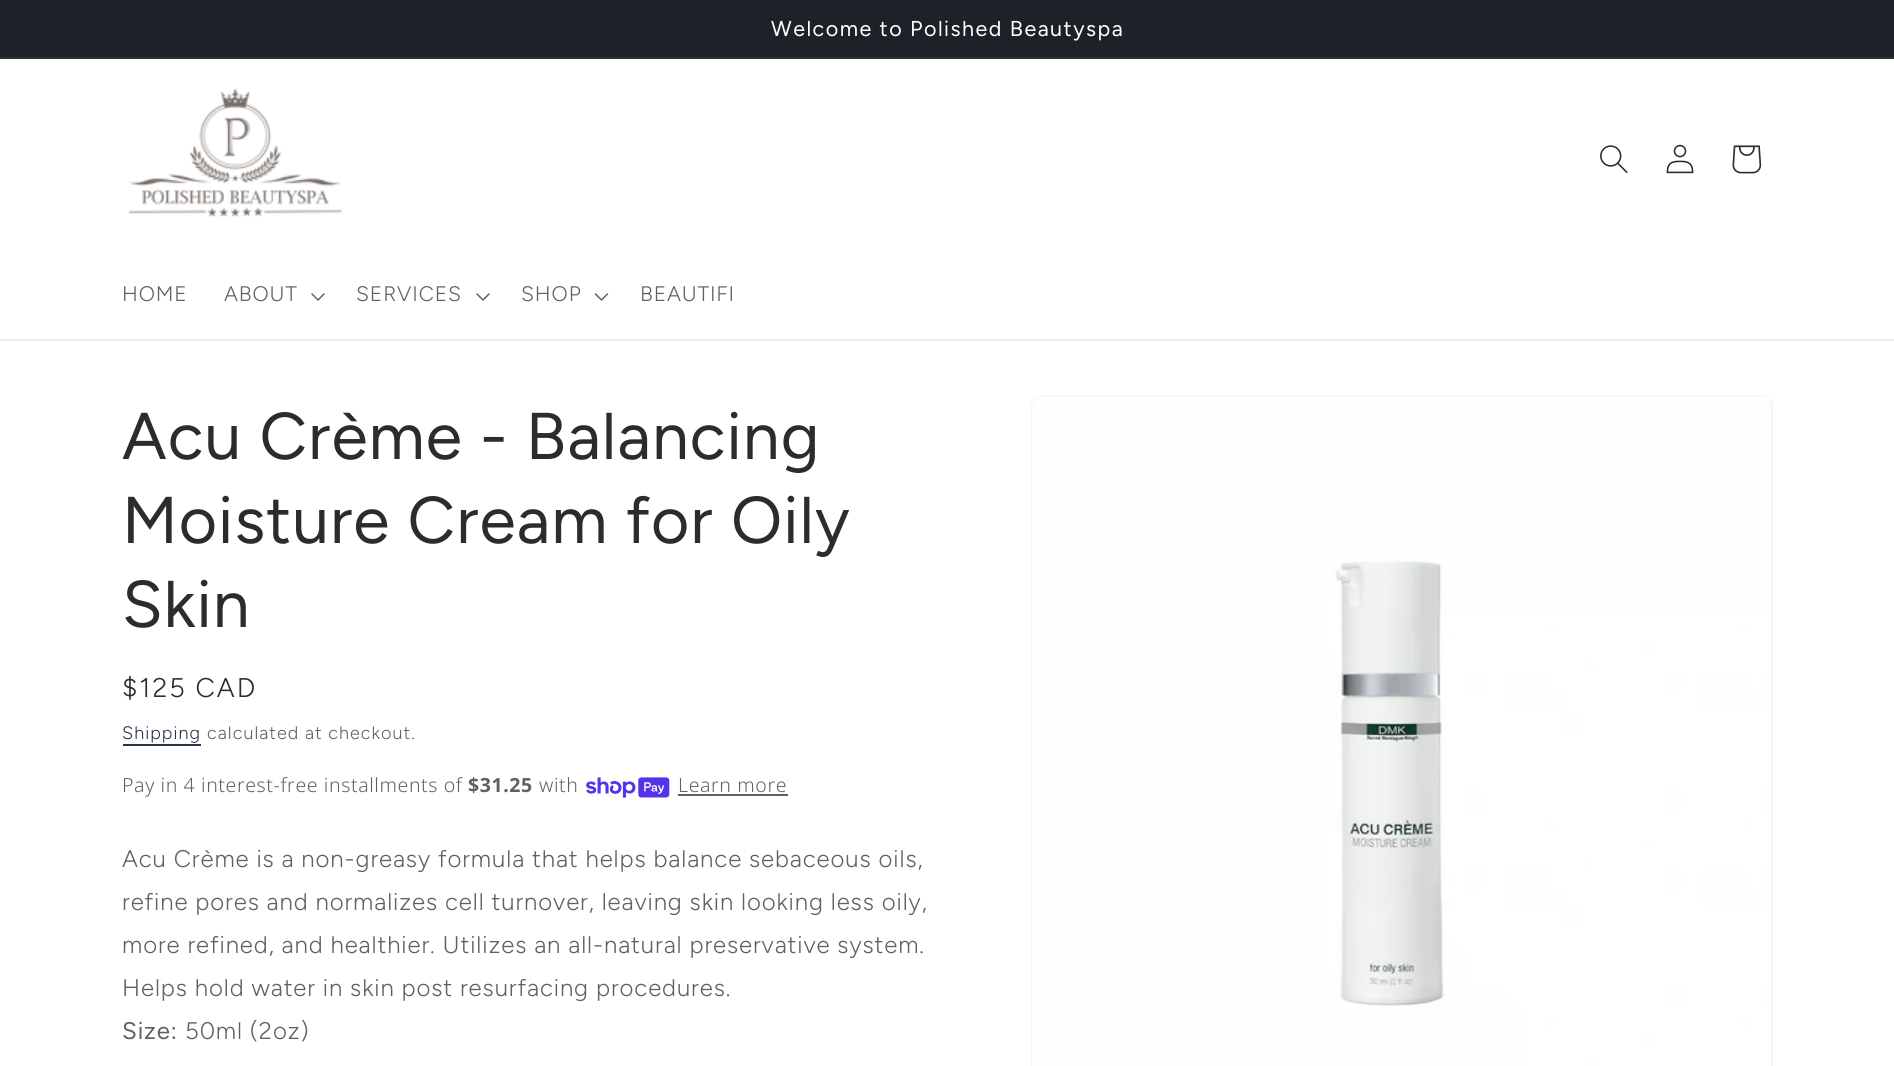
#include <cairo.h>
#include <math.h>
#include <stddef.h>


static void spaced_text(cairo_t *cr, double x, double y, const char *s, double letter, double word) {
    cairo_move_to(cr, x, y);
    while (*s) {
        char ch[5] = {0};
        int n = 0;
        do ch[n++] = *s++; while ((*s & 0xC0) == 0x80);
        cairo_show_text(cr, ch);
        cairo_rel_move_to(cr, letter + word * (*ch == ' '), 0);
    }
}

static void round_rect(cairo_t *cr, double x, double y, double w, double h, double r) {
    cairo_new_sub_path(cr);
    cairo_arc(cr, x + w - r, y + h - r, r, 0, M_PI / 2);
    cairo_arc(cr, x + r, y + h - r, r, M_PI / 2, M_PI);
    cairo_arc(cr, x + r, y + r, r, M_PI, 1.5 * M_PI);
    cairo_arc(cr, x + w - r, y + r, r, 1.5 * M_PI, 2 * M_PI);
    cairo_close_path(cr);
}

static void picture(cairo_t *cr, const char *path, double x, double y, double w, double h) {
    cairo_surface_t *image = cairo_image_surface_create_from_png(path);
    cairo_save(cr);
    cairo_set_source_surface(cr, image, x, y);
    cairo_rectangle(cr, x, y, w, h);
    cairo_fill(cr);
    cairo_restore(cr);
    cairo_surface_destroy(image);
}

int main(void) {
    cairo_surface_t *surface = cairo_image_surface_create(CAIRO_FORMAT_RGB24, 1894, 1066);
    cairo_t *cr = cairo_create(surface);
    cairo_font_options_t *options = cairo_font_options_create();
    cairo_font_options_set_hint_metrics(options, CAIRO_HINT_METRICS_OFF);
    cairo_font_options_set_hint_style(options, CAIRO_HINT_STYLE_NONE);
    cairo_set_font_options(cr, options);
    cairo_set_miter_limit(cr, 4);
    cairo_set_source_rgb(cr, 1, 1, 1);
    cairo_paint(cr);
    cairo_set_source_rgb(cr, 0.11, 0.133, 0.157);
    cairo_rectangle(cr, 0, 0, 1894, 57);
    cairo_fill(cr);
    cairo_set_source_rgb(cr, 0.18, 0.204, 0.224);
    cairo_rectangle(cr, 0, 57, 1894, 2);
    cairo_fill(cr);
    cairo_select_font_face(cr, "Figtree", CAIRO_FONT_SLANT_NORMAL, CAIRO_FONT_WEIGHT_NORMAL);
    cairo_set_font_size(cr, 21.5);
    cairo_set_source_rgb(cr, 1, 1, 1);
    spaced_text(cr, 771, 36, "Welcome to Polished Beautyspa", 1.5, 0);
    cairo_set_source_rgb(cr, 0.933, 0.933, 0.933);
    cairo_rectangle(cr, 0, 339, 1894, 2);
    cairo_fill(cr);
    picture(cr, "img1.png", 128, 88, 215, 129);
    picture(cr, "img2.png", 1600, 145, 28, 28);
    picture(cr, "img3.png", 1666, 144, 28, 30);
    picture(cr, "img4.png", 1732, 145, 30, 29);
    cairo_select_font_face(cr, "Figtree Light", CAIRO_FONT_SLANT_NORMAL, CAIRO_FONT_WEIGHT_NORMAL);
    cairo_set_font_size(cr, 21);
    cairo_set_source_rgb(cr, 0.376, 0.38, 0.384);
    spaced_text(cr, 122, 301, "HOME", 0.9, 0);
    spaced_text(cr, 224, 301, "ABOUT", 0.9, 0);
    picture(cr, "img5.png", 311, 293, 14, 8);
    spaced_text(cr, 356, 301, "SERVICES", 0.9, 0);
    picture(cr, "img5.png", 476, 293, 14, 8);
    spaced_text(cr, 521, 301, "SHOP", 0.9, 0);
    picture(cr, "img6.png", 594, 293, 15, 8);
    spaced_text(cr, 640, 301, "BEAUTIFI", 0.9, 0);
    cairo_select_font_face(cr, "Figtree", CAIRO_FONT_SLANT_NORMAL, CAIRO_FONT_WEIGHT_NORMAL);
    cairo_set_font_size(cr, 66);
    cairo_set_source_rgb(cr, 0.169, 0.173, 0.176);
    spaced_text(cr, 122, 459, "Acu Crème - Balancing", 1, 0);
    spaced_text(cr, 122, 543, "Moisture Cream for Oily", 1, 0);
    spaced_text(cr, 122, 627, "Skin", 1, 0);
    cairo_select_font_face(cr, "Figtree Light", CAIRO_FONT_SLANT_NORMAL, CAIRO_FONT_WEIGHT_NORMAL);
    cairo_set_font_size(cr, 27);
    spaced_text(cr, 122, 697, "$125 CAD", 2, 0);
    cairo_set_font_size(cr, 18);
    cairo_set_source_rgb(cr, 0.149, 0.208, 0.282);
    spaced_text(cr, 122, 739, "Shipping", 1.05, 0);
    cairo_rectangle(cr, 123, 744, 78, 2);
    cairo_fill(cr);
    cairo_set_source_rgb(cr, 0.376, 0.38, 0.384);
    spaced_text(cr, 207, 739, "calculated at checkout.", 1.05, 0);
    cairo_select_font_face(cr, "Noto Sans Light", CAIRO_FONT_SLANT_NORMAL, CAIRO_FONT_WEIGHT_NORMAL);
    cairo_set_font_size(cr, 19.5);
    spaced_text(cr, 122, 792, "Pay in 4 interest-free installments of", 0.6, 0);
    cairo_select_font_face(cr, "Noto Sans", CAIRO_FONT_SLANT_NORMAL, CAIRO_FONT_WEIGHT_BOLD);
    spaced_text(cr, 468, 792, "$31.25", 0.6, 0);
    cairo_select_font_face(cr, "Noto Sans Light", CAIRO_FONT_SLANT_NORMAL, CAIRO_FONT_WEIGHT_NORMAL);
    spaced_text(cr, 539, 792, "with", 0.6, 0);
    picture(cr, "img7.png", 586, 777, 84, 21);
    spaced_text(cr, 678, 792, "Learn more", 0.6, 0);
    cairo_rectangle(cr, 678, 794, 110, 2);
    cairo_fill(cr);
    cairo_select_font_face(cr, "Figtree Light", CAIRO_FONT_SLANT_NORMAL, CAIRO_FONT_WEIGHT_NORMAL);
    cairo_set_font_size(cr, 24);
    spaced_text(cr, 122, 867, "Acu Crème is a non-greasy formula that helps balance sebaceous oils,", 0.9, 0);
    spaced_text(cr, 122, 910, "refine pores and normalizes cell turnover, leaving skin looking less oily,", 0.9, 0);
    spaced_text(cr, 122, 953, "more refined, and healthier. Utilizes an all-natural preservative system.", 0.9, 0);
    spaced_text(cr, 122, 996, "Helps hold water in skin post resurfacing procedures.", 0.9, 0);
    cairo_select_font_face(cr, "Figtree", CAIRO_FONT_SLANT_NORMAL, CAIRO_FONT_WEIGHT_NORMAL);
    spaced_text(cr, 122, 1039, "Size:", 0.9, 0);
    cairo_select_font_face(cr, "Figtree Light", CAIRO_FONT_SLANT_NORMAL, CAIRO_FONT_WEIGHT_NORMAL);
    spaced_text(cr, 185, 1039, "50ml (2oz)", 0.9, 0);
    round_rect(cr, 1032, 396, 740, 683, 11);
    cairo_set_source_rgb(cr, 0.957, 0.957, 0.961);
    cairo_stroke(cr);
    picture(cr, "img8.png", 1032, 396, 739, 670);
    cairo_surface_write_to_png(surface, "page.png");
    cairo_font_options_destroy(options);
    cairo_destroy(cr);
    cairo_surface_destroy(surface);
    return 0;
}
